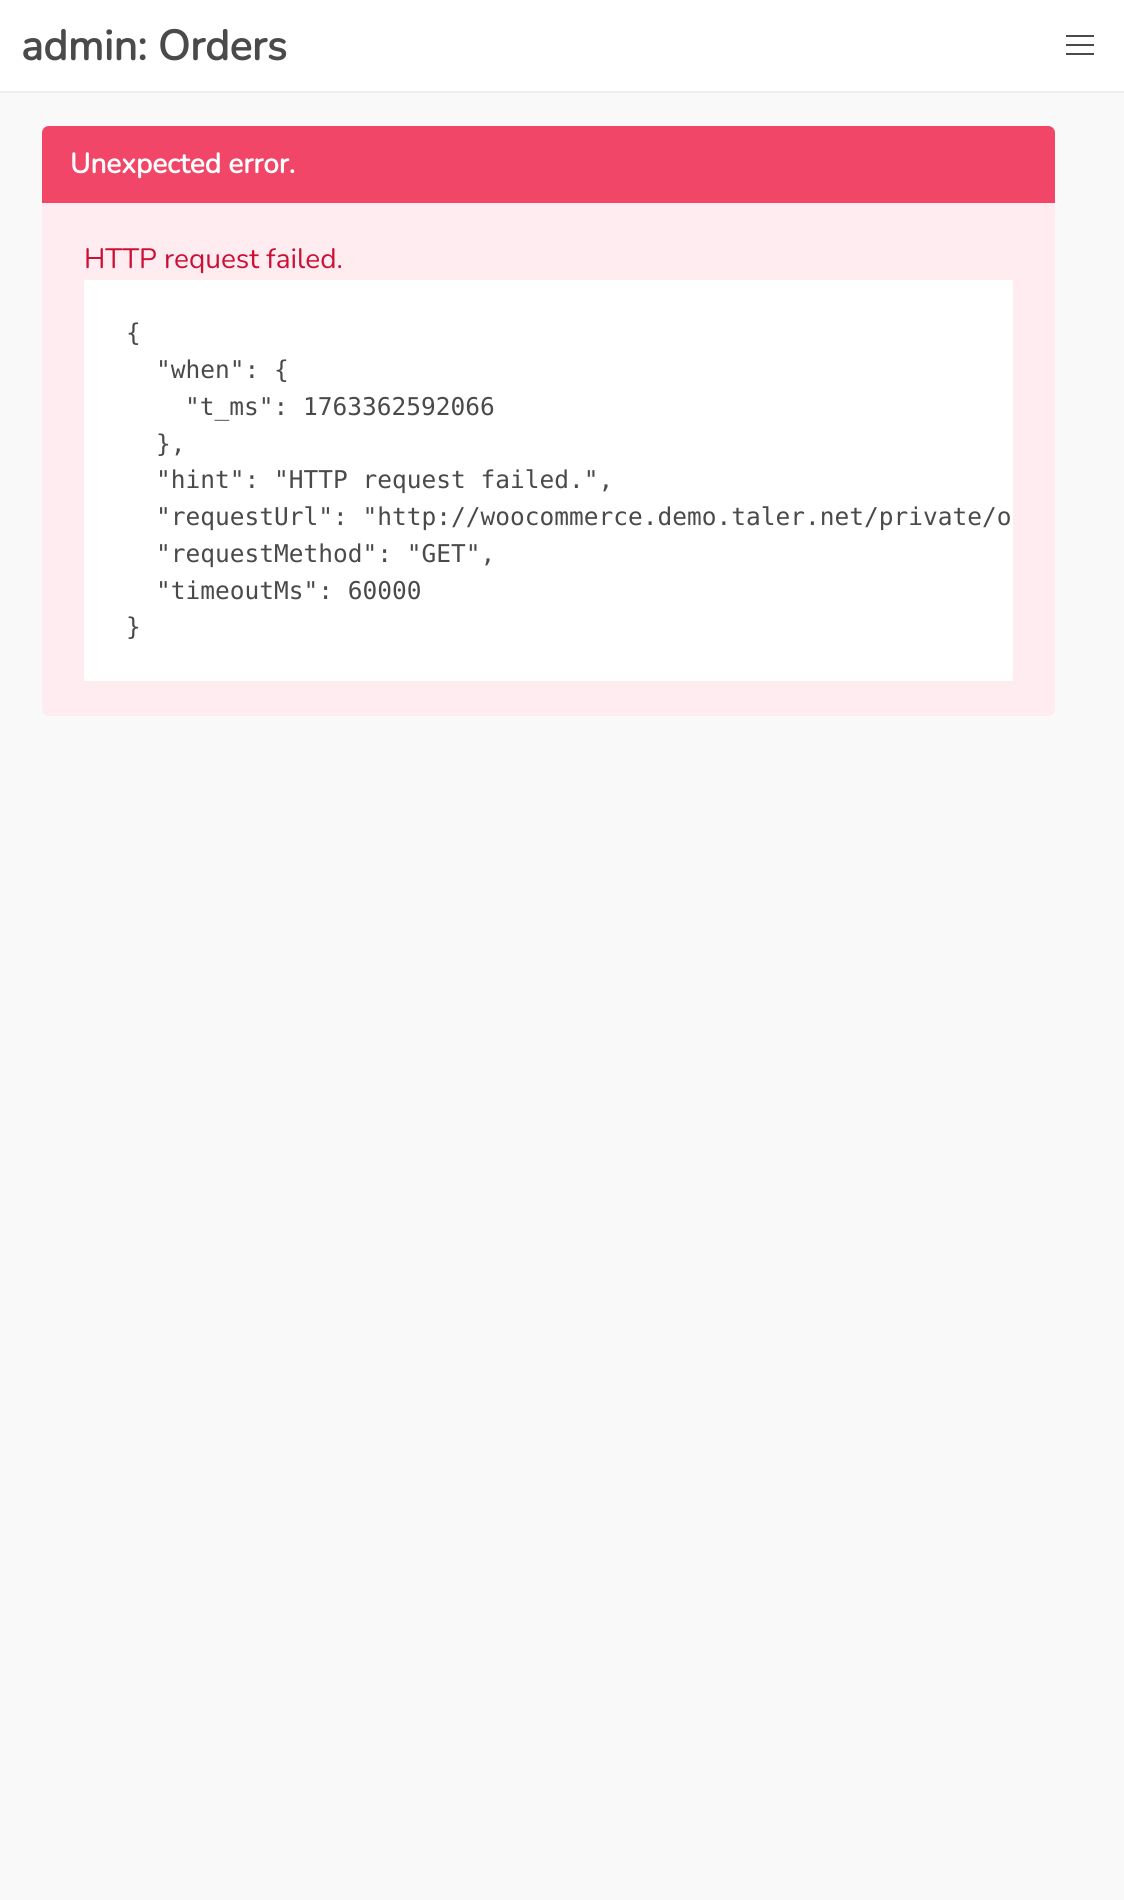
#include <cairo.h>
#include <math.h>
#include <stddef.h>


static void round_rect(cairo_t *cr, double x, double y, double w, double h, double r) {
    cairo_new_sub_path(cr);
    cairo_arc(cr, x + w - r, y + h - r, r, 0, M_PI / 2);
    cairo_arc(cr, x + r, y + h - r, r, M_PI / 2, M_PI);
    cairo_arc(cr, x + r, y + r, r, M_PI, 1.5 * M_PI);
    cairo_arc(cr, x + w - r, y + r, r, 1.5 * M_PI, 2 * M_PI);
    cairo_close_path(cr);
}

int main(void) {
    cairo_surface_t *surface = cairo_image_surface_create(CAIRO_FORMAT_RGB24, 1124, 1900);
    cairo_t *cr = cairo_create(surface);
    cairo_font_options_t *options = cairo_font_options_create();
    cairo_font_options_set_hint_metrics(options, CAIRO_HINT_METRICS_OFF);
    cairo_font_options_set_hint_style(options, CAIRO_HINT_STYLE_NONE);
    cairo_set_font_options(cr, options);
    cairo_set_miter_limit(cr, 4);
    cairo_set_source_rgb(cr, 0.973, 0.973, 0.973);
    cairo_paint(cr);
    cairo_set_source_rgb(cr, 0.937, 0.937, 0.937);
    cairo_rectangle(cr, 0, 91, 1124, 2);
    cairo_fill(cr);
    cairo_set_source_rgb(cr, 1, 1, 1);
    cairo_rectangle(cr, 0, 0, 1124, 91);
    cairo_fill(cr);
    cairo_select_font_face(cr, "Nunito", CAIRO_FONT_SLANT_NORMAL, CAIRO_FONT_WEIGHT_BOLD);
    cairo_set_font_size(cr, 42);
    cairo_set_source_rgb(cr, 0.29, 0.29, 0.29);
    cairo_move_to(cr, 21, 60);
    cairo_show_text(cr, "admin: Orders");
    cairo_rectangle(cr, 1066, 35, 28, 2);
    cairo_fill(cr);
    cairo_rectangle(cr, 1066, 44, 28, 2);
    cairo_fill(cr);
    cairo_rectangle(cr, 1066, 53, 28, 2);
    cairo_fill(cr);
    cairo_set_source_rgb(cr, 0.996, 0.925, 0.941);
    round_rect(cr, 42, 126, 1013, 590, 7);
    cairo_fill(cr);
    cairo_set_source_rgb(cr, 0.945, 0.275, 0.408);
    cairo_new_path(cr);
    cairo_move_to(cr, 49, 126);
    cairo_line_to(cr, 1048, 126);
    cairo_curve_to(cr, 1052, 126, 1055, 129, 1055, 133);
    cairo_line_to(cr, 1055, 203);
    cairo_line_to(cr, 42, 203);
    cairo_line_to(cr, 42, 133);
    cairo_curve_to(cr, 42, 129, 45, 126, 49, 126);
    cairo_close_path(cr);
    cairo_fill(cr);
    cairo_set_font_size(cr, 28);
    cairo_set_source_rgb(cr, 1, 1, 1);
    cairo_move_to(cr, 70, 173);
    cairo_show_text(cr, "Unexpected error.");
    cairo_select_font_face(cr, "Nunito", CAIRO_FONT_SLANT_NORMAL, CAIRO_FONT_WEIGHT_NORMAL);
    cairo_set_source_rgb(cr, 0.8, 0.059, 0.208);
    cairo_move_to(cr, 84, 268);
    cairo_show_text(cr, "HTTP request failed.");
    cairo_set_source_rgb(cr, 1, 1, 1);
    cairo_rectangle(cr, 84, 280, 929, 401);
    cairo_fill(cr);
    cairo_select_font_face(cr, "DejaVu Sans Mono", CAIRO_FONT_SLANT_NORMAL, CAIRO_FONT_WEIGHT_NORMAL);
    cairo_set_font_size(cr, 24.5);
    cairo_set_source_rgb(cr, 0.29, 0.29, 0.29);
    cairo_move_to(cr, 126, 341);
    cairo_show_text(cr, "{");
    cairo_move_to(cr, 156, 378);
    cairo_show_text(cr, "\"when\": {");
    cairo_move_to(cr, 185, 415);
    cairo_show_text(cr, "\"t_ms\": 1763362592066");
    cairo_move_to(cr, 156, 452);
    cairo_show_text(cr, "},");
    cairo_move_to(cr, 156, 488);
    cairo_show_text(cr, "\"hint\": \"HTTP request failed.\",");
    cairo_move_to(cr, 156, 525);
    cairo_show_text(cr, "\"requestUrl\": \"http://woocommerce.demo.taler.net/private/o");
    cairo_move_to(cr, 156, 562);
    cairo_show_text(cr, "\"requestMethod\": \"GET\",");
    cairo_move_to(cr, 156, 599);
    cairo_show_text(cr, "\"timeoutMs\": 60000");
    cairo_move_to(cr, 126, 635);
    cairo_show_text(cr, "}");
    cairo_surface_write_to_png(surface, "page.png");
    cairo_font_options_destroy(options);
    cairo_destroy(cr);
    cairo_surface_destroy(surface);
    return 0;
}
